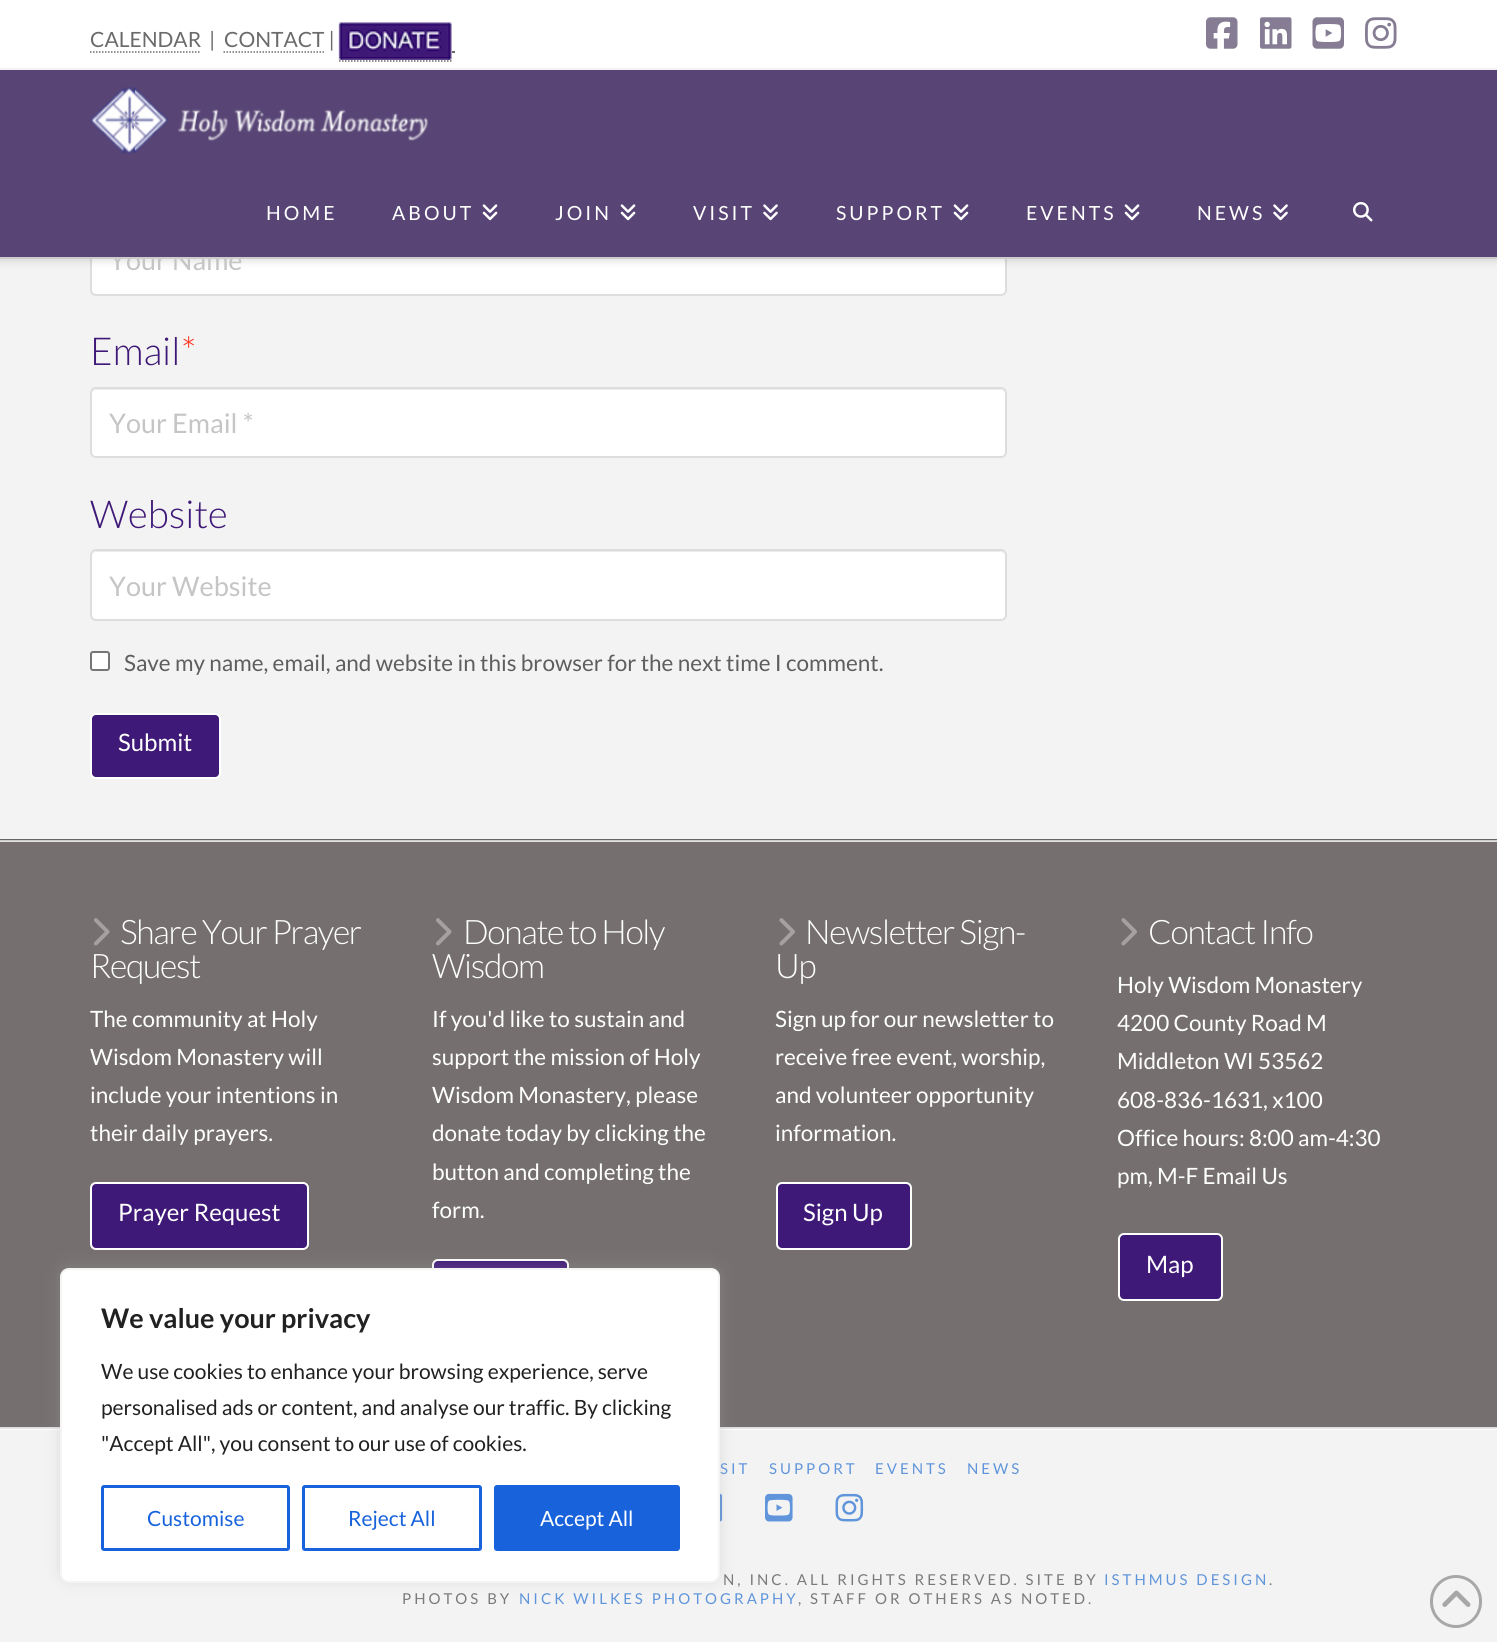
#include <cairo.h>
#include <math.h>
#include <stddef.h>


static void spaced_text(cairo_t *cr, double x, double y, const char *s, double letter, double word) {
    cairo_move_to(cr, x, y);
    while (*s) {
        char ch[5] = {0};
        int n = 0;
        do ch[n++] = *s++; while ((*s & 0xC0) == 0x80);
        cairo_show_text(cr, ch);
        cairo_rel_move_to(cr, letter + word * (*ch == ' '), 0);
    }
}

static void round_rect(cairo_t *cr, double x, double y, double w, double h, double r) {
    cairo_new_sub_path(cr);
    cairo_arc(cr, x + w - r, y + h - r, r, 0, M_PI / 2);
    cairo_arc(cr, x + r, y + h - r, r, M_PI / 2, M_PI);
    cairo_arc(cr, x + r, y + r, r, M_PI, 1.5 * M_PI);
    cairo_arc(cr, x + w - r, y + r, r, 1.5 * M_PI, 2 * M_PI);
    cairo_close_path(cr);
}

static void shadow(cairo_t *cr, double x, double y, double w, double h, double r, double blur, double alpha) {
    cairo_push_group_with_content(cr, CAIRO_CONTENT_ALPHA);
    cairo_set_operator(cr, CAIRO_OPERATOR_SOURCE);
    for (int i = 15; i >= -15 && fmin(w, h) + blur * i / 3 > 0; i -= 2) {
        double e = blur * i / 6;
        cairo_set_source_rgba(cr, 0, 0, 0, alpha * erfc((i - 1) / 8.5) / 2);
        round_rect(cr, x - e, y - e, w + 2 * e, h + 2 * e, fmax(0, fmin(r + e + blur * .6, fmin(w, h) / 2 + e)));
        cairo_fill(cr);
    }
    cairo_pattern_t *soft = cairo_pop_group(cr);
    cairo_mask(cr, soft);
    cairo_pattern_destroy(soft);
}

static void picture(cairo_t *cr, const char *path, double x, double y, double w, double h) {
    cairo_surface_t *image = cairo_image_surface_create_from_png(path);
    cairo_save(cr);
    cairo_set_source_surface(cr, image, x, y);
    cairo_rectangle(cr, x, y, w, h);
    cairo_fill(cr);
    cairo_restore(cr);
    cairo_surface_destroy(image);
}

int main(void) {
    cairo_surface_t *surface = cairo_image_surface_create(CAIRO_FORMAT_RGB24, 1497, 1642);
    cairo_t *cr = cairo_create(surface);
    cairo_font_options_t *options = cairo_font_options_create();
    cairo_font_options_set_hint_metrics(options, CAIRO_HINT_METRICS_OFF);
    cairo_font_options_set_hint_style(options, CAIRO_HINT_STYLE_NONE);
    cairo_set_font_options(cr, options);
    cairo_set_miter_limit(cr, 4);
    cairo_set_source_rgb(cr, 0.953, 0.953, 0.953);
    cairo_paint(cr);
    cairo_set_source_rgb(cr, 0.867, 0.867, 0.867);
    cairo_rectangle(cr, 0, 1427, 1497, 1);
    cairo_fill(cr);
    cairo_set_source_rgb(cr, 1, 1, 1);
    round_rect(cr, 91, 225, 915, 70, 5);
    cairo_fill_preserve(cr);
    cairo_set_source_rgb(cr, 0.867, 0.867, 0.867);
    cairo_stroke(cr);
    cairo_set_source_rgb(cr, 0, 0, 0);
    shadow(cr, 0, 72, 1497, 189, 0, 4, 0.13);
    cairo_set_source_rgb(cr, 1, 1, 1);
    cairo_rectangle(cr, 0, 0, 1497, 68);
    cairo_fill(cr);
    cairo_set_source_rgb(cr, 0.949, 0.949, 0.949);
    cairo_rectangle(cr, 0, 68, 1497, 2);
    cairo_fill(cr);
    cairo_select_font_face(cr, "Lato", CAIRO_FONT_SLANT_NORMAL, CAIRO_FONT_WEIGHT_NORMAL);
    cairo_set_font_size(cr, 21);
    cairo_set_source_rgb(cr, 0.42, 0.42, 0.42);
    cairo_move_to(cr, 90, 47);
    cairo_show_text(cr, "CALENDAR");
    cairo_new_path(cr);
    cairo_move_to(cr, 90, 52);
    cairo_line_to(cr, 201, 52);
    cairo_set_line_width(cr, 1.5);
    cairo_set_dash(cr, (double[]){1.5, 1.5}, 2, 0);
    cairo_stroke(cr);
    cairo_move_to(cr, 209, 47);
    cairo_show_text(cr, "|");
    cairo_move_to(cr, 224, 47);
    cairo_show_text(cr, "CONTACT |");
    cairo_new_path(cr);
    cairo_move_to(cr, 223.5, 52);
    cairo_line_to(cr, 324, 52);
    cairo_stroke(cr);
    picture(cr, "img1.png", 338, 22, 114, 38);
    cairo_rectangle(cr, 452, 51, 3, 2);
    cairo_fill(cr);
    cairo_new_path(cr);
    cairo_move_to(cr, 339, 61);
    cairo_line_to(cr, 451.5, 61);
    cairo_stroke(cr);
    picture(cr, "img2.png", 1206, 17, 32, 32);
    picture(cr, "img3.png", 1260, 17, 32, 32);
    picture(cr, "img4.png", 1312, 17, 32, 32);
    picture(cr, "img5.png", 1365, 17, 32, 32);
    cairo_set_font_size(cr, 27);
    cairo_set_source_rgb(cr, 0.773, 0.773, 0.773);
    cairo_move_to(cr, 109, 270);
    cairo_show_text(cr, "Your Name");
    cairo_set_source_rgb(cr, 0.8, 0.8, 0.8);
    cairo_rectangle(cr, 0, 257, 1497, 2);
    cairo_fill(cr);
    cairo_set_source_rgb(cr, 0.345, 0.271, 0.459);
    cairo_rectangle(cr, 0, 70, 1497, 187);
    cairo_fill(cr);
    picture(cr, "img6.png", 90, 86, 338, 68);
    cairo_set_font_size(cr, 19.5);
    cairo_set_source_rgb(cr, 1, 1, 1);
    spaced_text(cr, 266, 220, "HOME", 3, 0);
    spaced_text(cr, 392, 220, "ABOUT", 3, 0);
    picture(cr, "img7.png", 482, 204, 16, 17);
    spaced_text(cr, 555, 220, "JOIN", 3, 0);
    picture(cr, "img7.png", 620, 204, 16, 17);
    spaced_text(cr, 693, 220, "VISIT", 3, 0);
    picture(cr, "img8.png", 763, 204, 15, 17);
    spaced_text(cr, 836, 220, "SUPPORT", 3, 0);
    picture(cr, "img7.png", 953, 204, 16, 17);
    spaced_text(cr, 1026, 220, "EVENTS", 3, 0);
    picture(cr, "img7.png", 1124, 204, 16, 17);
    spaced_text(cr, 1197, 220, "NEWS", 3, 0);
    picture(cr, "img8.png", 1273, 204, 15, 17);
    picture(cr, "img9.png", 1353, 201, 20, 21);
    cairo_select_font_face(cr, "Lato Light", CAIRO_FONT_SLANT_NORMAL, CAIRO_FONT_WEIGHT_NORMAL);
    cairo_set_font_size(cr, 38.5);
    cairo_set_source_rgb(cr, 0.247, 0.098, 0.467);
    cairo_move_to(cr, 90, 365);
    cairo_show_text(cr, "Email");
    cairo_set_source_rgb(cr, 1, 0.165, 0.075);
    cairo_move_to(cr, 181, 365);
    cairo_show_text(cr, "*");
    cairo_set_source_rgb(cr, 1, 1, 1);
    round_rect(cr, 90, 387, 917, 71, 6);
    cairo_fill(cr);
    cairo_set_source_rgb(cr, 0.925, 0.925, 0.925);
    cairo_new_path(cr);
    cairo_move_to(cr, 96, 390);
    cairo_line_to(cr, 1000, 390);
    cairo_curve_to(cr, 1003, 390, 1005, 392, 1005, 394);
    cairo_curve_to(cr, 1005, 391, 1003, 389, 1000, 389);
    cairo_line_to(cr, 97, 389);
    cairo_curve_to(cr, 94, 389, 92, 391, 92, 394);
    cairo_curve_to(cr, 92, 392, 94, 390, 96, 390);
    cairo_close_path(cr);
    cairo_fill(cr);
    round_rect(cr, 91, 388, 915, 69, 5);
    cairo_set_source_rgb(cr, 0.867, 0.867, 0.867);
    cairo_set_line_width(cr, 2);
    cairo_set_dash(cr, NULL, 0, 0);
    cairo_stroke(cr);
    cairo_select_font_face(cr, "Lato", CAIRO_FONT_SLANT_NORMAL, CAIRO_FONT_WEIGHT_NORMAL);
    cairo_set_font_size(cr, 27);
    cairo_set_source_rgb(cr, 0.773, 0.773, 0.773);
    cairo_move_to(cr, 109, 433);
    cairo_show_text(cr, "Your Email *");
    cairo_select_font_face(cr, "Lato Light", CAIRO_FONT_SLANT_NORMAL, CAIRO_FONT_WEIGHT_NORMAL);
    cairo_set_font_size(cr, 38.5);
    cairo_set_source_rgb(cr, 0.247, 0.098, 0.467);
    cairo_move_to(cr, 90, 528);
    cairo_show_text(cr, "Website");
    cairo_set_source_rgb(cr, 1, 1, 1);
    round_rect(cr, 90, 549, 917, 72, 6);
    cairo_fill(cr);
    cairo_set_source_rgb(cr, 0.925, 0.925, 0.925);
    cairo_new_path(cr);
    cairo_move_to(cr, 96, 552);
    cairo_line_to(cr, 1000, 552);
    cairo_curve_to(cr, 1003, 552, 1005, 554, 1005, 556);
    cairo_curve_to(cr, 1005, 553, 1003, 551, 1000, 551);
    cairo_line_to(cr, 97, 551);
    cairo_curve_to(cr, 94, 551, 92, 553, 92, 556);
    cairo_curve_to(cr, 92, 554, 94, 552, 96, 552);
    cairo_close_path(cr);
    cairo_fill(cr);
    round_rect(cr, 91, 550, 915, 70, 5);
    cairo_set_source_rgb(cr, 0.867, 0.867, 0.867);
    cairo_stroke(cr);
    cairo_select_font_face(cr, "Lato", CAIRO_FONT_SLANT_NORMAL, CAIRO_FONT_WEIGHT_NORMAL);
    cairo_set_font_size(cr, 27);
    cairo_set_source_rgb(cr, 0.773, 0.773, 0.773);
    cairo_move_to(cr, 109, 596);
    cairo_show_text(cr, "Your Website");
    cairo_set_source_rgb(cr, 1, 1, 1);
    round_rect(cr, 91, 652, 18, 18, 2);
    cairo_fill_preserve(cr);
    cairo_set_source_rgb(cr, 0.463, 0.463, 0.463);
    cairo_stroke(cr);
    cairo_set_font_size(cr, 22.5);
    cairo_set_source_rgb(cr, 0.369, 0.369, 0.369);
    cairo_move_to(cr, 124, 671);
    cairo_show_text(cr, "Save my name, email, and website in this browser for the next time I comment.");
    cairo_set_source_rgb(cr, 0.247, 0.098, 0.467);
    round_rect(cr, 91, 714, 129, 64, 5);
    cairo_fill_preserve(cr);
    cairo_set_source_rgb(cr, 1, 1, 1);
    cairo_stroke(cr);
    cairo_set_font_size(cr, 24);
    cairo_move_to(cr, 118, 751);
    cairo_show_text(cr, "Submit");
    cairo_set_source_rgb(cr, 0.459, 0.435, 0.435);
    cairo_rectangle(cr, 0, 842, 1497, 585);
    cairo_fill(cr);
    cairo_set_source_rgb(cr, 0.416, 0.396, 0.396);
    cairo_rectangle(cr, 0, 839, 1497, 1);
    cairo_fill(cr);
    cairo_set_source_rgb(cr, 0.89, 0.886, 0.886);
    cairo_rectangle(cr, 0, 841, 1497, 1);
    cairo_fill(cr);
    cairo_set_source_rgb(cr, 0.812, 0.808, 0.808);
    cairo_rectangle(cr, 0, 840, 1497, 1);
    cairo_fill(cr);
    picture(cr, "img10.png", 94, 918, 16, 28);
    cairo_select_font_face(cr, "Lato Light", CAIRO_FONT_SLANT_NORMAL, CAIRO_FONT_WEIGHT_NORMAL);
    cairo_set_font_size(cr, 33.75);
    cairo_set_source_rgb(cr, 1, 1, 1);
    spaced_text(cr, 120, 944, "Share Your Prayer", -1.3, 0);
    spaced_text(cr, 90, 978, "Request", -1.3, 0);
    cairo_select_font_face(cr, "Lato", CAIRO_FONT_SLANT_NORMAL, CAIRO_FONT_WEIGHT_NORMAL);
    cairo_set_font_size(cr, 22.5);
    cairo_move_to(cr, 90, 1027);
    cairo_show_text(cr, "The community at Holy");
    cairo_move_to(cr, 90, 1065);
    cairo_show_text(cr, "Wisdom Monastery will");
    cairo_move_to(cr, 90, 1103);
    cairo_show_text(cr, "include your intentions in");
    cairo_move_to(cr, 90, 1141);
    cairo_show_text(cr, "their daily prayers.");
    cairo_set_source_rgb(cr, 0.247, 0.098, 0.467);
    round_rect(cr, 91, 1183, 217, 66, 5);
    cairo_fill_preserve(cr);
    cairo_set_source_rgb(cr, 1, 1, 1);
    cairo_stroke(cr);
    cairo_set_font_size(cr, 24);
    cairo_move_to(cr, 118, 1221);
    cairo_show_text(cr, "Prayer Request");
    picture(cr, "img10.png", 436, 918, 16, 28);
    cairo_select_font_face(cr, "Lato Light", CAIRO_FONT_SLANT_NORMAL, CAIRO_FONT_WEIGHT_NORMAL);
    cairo_set_font_size(cr, 33.75);
    spaced_text(cr, 463, 944, "Donate to Holy", -1.3, 0);
    spaced_text(cr, 432, 978, "Wisdom", -1.3, 0);
    cairo_select_font_face(cr, "Lato", CAIRO_FONT_SLANT_NORMAL, CAIRO_FONT_WEIGHT_NORMAL);
    cairo_set_font_size(cr, 22.5);
    cairo_move_to(cr, 432, 1027);
    cairo_show_text(cr, "If you'd like to sustain and");
    cairo_move_to(cr, 432, 1065);
    cairo_show_text(cr, "support the mission of Holy");
    cairo_move_to(cr, 432, 1103);
    cairo_show_text(cr, "Wisdom Monastery, please");
    cairo_move_to(cr, 432, 1141);
    cairo_show_text(cr, "donate today by clicking the");
    cairo_move_to(cr, 432, 1180);
    cairo_show_text(cr, "button and completing the");
    cairo_move_to(cr, 432, 1218);
    cairo_show_text(cr, "form.");
    cairo_set_source_rgb(cr, 0.247, 0.098, 0.467);
    round_rect(cr, 433, 1260, 135, 65, 5);
    cairo_fill_preserve(cr);
    cairo_set_source_rgb(cr, 1, 1, 1);
    cairo_stroke(cr);
    picture(cr, "img11.png", 779, 918, 16, 28);
    cairo_select_font_face(cr, "Lato Light", CAIRO_FONT_SLANT_NORMAL, CAIRO_FONT_WEIGHT_NORMAL);
    cairo_set_font_size(cr, 33.75);
    spaced_text(cr, 805, 944, "Newsletter Sign-", -1.3, 0);
    spaced_text(cr, 775, 978, "Up", -1.3, 0);
    cairo_select_font_face(cr, "Lato", CAIRO_FONT_SLANT_NORMAL, CAIRO_FONT_WEIGHT_NORMAL);
    cairo_set_font_size(cr, 22.5);
    cairo_move_to(cr, 775, 1027);
    cairo_show_text(cr, "Sign up for our newsletter to");
    cairo_move_to(cr, 775, 1065);
    cairo_show_text(cr, "receive free event, worship,");
    cairo_move_to(cr, 775, 1103);
    cairo_show_text(cr, "and volunteer opportunity");
    cairo_move_to(cr, 775, 1141);
    cairo_show_text(cr, "information.");
    cairo_set_source_rgb(cr, 0.247, 0.098, 0.467);
    round_rect(cr, 777, 1183, 134, 66, 5);
    cairo_fill_preserve(cr);
    cairo_set_source_rgb(cr, 1, 1, 1);
    cairo_stroke(cr);
    cairo_set_font_size(cr, 24);
    cairo_move_to(cr, 803, 1221);
    cairo_show_text(cr, "Sign Up");
    picture(cr, "img11.png", 1121, 918, 16, 28);
    cairo_select_font_face(cr, "Lato Light", CAIRO_FONT_SLANT_NORMAL, CAIRO_FONT_WEIGHT_NORMAL);
    cairo_set_font_size(cr, 33.75);
    spaced_text(cr, 1148, 944, "Contact Info", -1.3, 0);
    cairo_select_font_face(cr, "Lato", CAIRO_FONT_SLANT_NORMAL, CAIRO_FONT_WEIGHT_NORMAL);
    cairo_set_font_size(cr, 22.5);
    cairo_move_to(cr, 1117, 993);
    cairo_show_text(cr, "Holy Wisdom Monastery");
    cairo_move_to(cr, 1117, 1031);
    cairo_show_text(cr, "4200 County Road M");
    cairo_move_to(cr, 1117, 1069);
    cairo_show_text(cr, "Middleton WI 53562");
    cairo_move_to(cr, 1117, 1108);
    cairo_show_text(cr, "608-836-1631, x100");
    cairo_move_to(cr, 1117, 1146);
    cairo_show_text(cr, "Office hours: 8:00 am-4:30");
    cairo_move_to(cr, 1117, 1184);
    cairo_show_text(cr, "pm, M-F Email Us");
    cairo_set_source_rgb(cr, 0.247, 0.098, 0.467);
    round_rect(cr, 1119, 1234, 103, 66, 5);
    cairo_fill_preserve(cr);
    cairo_set_source_rgb(cr, 1, 1, 1);
    cairo_stroke(cr);
    cairo_set_font_size(cr, 24);
    cairo_move_to(cr, 1146, 1273);
    cairo_show_text(cr, "Map");
    cairo_set_source_rgb(cr, 0.992, 0.992, 0.992);
    cairo_rectangle(cr, 0, 1429, 1497, 1);
    cairo_fill(cr);
    cairo_set_source_rgb(cr, 0.902, 0.902, 0.902);
    cairo_rectangle(cr, 0, 1428, 1497, 1);
    cairo_fill(cr);
    cairo_set_font_size(cr, 15);
    cairo_set_source_rgb(cr, 0.376, 0.584, 0.859);
    spaced_text(cr, 720, 1474, "SIT", 3, 0);
    spaced_text(cr, 769, 1474, "SUPPORT", 3, 0);
    spaced_text(cr, 875, 1474, "EVENTS", 3, 0);
    spaced_text(cr, 967, 1474, "NEWS", 3, 0);
    picture(cr, "img12.png", 720, 1493, 3, 29);
    picture(cr, "img13.png", 765, 1493, 28, 29);
    picture(cr, "img14.png", 835, 1493, 29, 29);
    cairo_set_source_rgb(cr, 0.478, 0.478, 0.478);
    spaced_text(cr, 723, 1585, "N, INC. ALL RIGHTS RESERVED. SITE BY", 3, 0);
    cairo_set_source_rgb(cr, 0.376, 0.584, 0.859);
    spaced_text(cr, 1104, 1585, "ISTHMUS DESIGN", 3, 0);
    cairo_set_source_rgb(cr, 0.478, 0.478, 0.478);
    spaced_text(cr, 1269, 1585, ".", 3, 0);
    spaced_text(cr, 402, 1604, "PHOTOS BY", 3, 0);
    cairo_set_source_rgb(cr, 0.376, 0.584, 0.859);
    spaced_text(cr, 519, 1604, "NICK WILKES PHOTOGRAPHY", 3, 0);
    cairo_set_source_rgb(cr, 0.478, 0.478, 0.478);
    spaced_text(cr, 798, 1604, ", STAFF OR OTHERS AS NOTED.", 3, 0);
    round_rect(cr, 1431.5, 1576.5, 49, 50, 24.5);
    cairo_set_source_rgb(cr, 0.655, 0.655, 0.655);
    cairo_set_line_width(cr, 3);
    cairo_stroke(cr);
    picture(cr, "img15.png", 1442, 1590, 29, 17);
    cairo_set_source_rgb(cr, 0.675, 0.671, 0.671);
    shadow(cr, 60, 1266, 660, 315, 9, 7.5, 0.3);
    cairo_set_source_rgb(cr, 1, 1, 1);
    round_rect(cr, 61, 1269, 658, 313, 8);
    cairo_fill_preserve(cr);
    cairo_set_source_rgb(cr, 0.957, 0.957, 0.957);
    cairo_set_line_width(cr, 2);
    cairo_stroke(cr);
    cairo_select_font_face(cr, "Lato", CAIRO_FONT_SLANT_NORMAL, CAIRO_FONT_WEIGHT_BOLD);
    cairo_set_font_size(cr, 27);
    cairo_set_source_rgb(cr, 0.129, 0.129, 0.129);
    cairo_move_to(cr, 101, 1328);
    cairo_show_text(cr, "We value your privacy");
    cairo_select_font_face(cr, "Lato", CAIRO_FONT_SLANT_NORMAL, CAIRO_FONT_WEIGHT_NORMAL);
    cairo_set_font_size(cr, 21);
    cairo_move_to(cr, 101, 1379);
    cairo_show_text(cr, "We use cookies to enhance your browsing experience, serve");
    cairo_move_to(cr, 101, 1415);
    cairo_show_text(cr, "personalised ads or content, and analyse our traffic. By clicking");
    cairo_move_to(cr, 101, 1451);
    cairo_show_text(cr, "\"Accept All\", you consent to our use of cookies.");
    round_rect(cr, 102.5, 1486.5, 186, 63, 1.5);
    cairo_set_source_rgb(cr, 0.094, 0.388, 0.863);
    cairo_set_line_width(cr, 3);
    cairo_stroke(cr);
    cairo_move_to(cr, 147, 1526);
    cairo_show_text(cr, "Customise");
    round_rect(cr, 303.5, 1486.5, 177, 63, 1.5);
    cairo_stroke(cr);
    cairo_move_to(cr, 348, 1526);
    cairo_show_text(cr, "Reject All");
    round_rect(cr, 495.5, 1486.5, 183, 63, 1.5);
    cairo_fill_preserve(cr);
    cairo_stroke(cr);
    cairo_set_source_rgb(cr, 1, 1, 1);
    cairo_move_to(cr, 540, 1526);
    cairo_show_text(cr, "Accept All");
    cairo_surface_write_to_png(surface, "page.png");
    cairo_font_options_destroy(options);
    cairo_destroy(cr);
    cairo_surface_destroy(surface);
    return 0;
}
